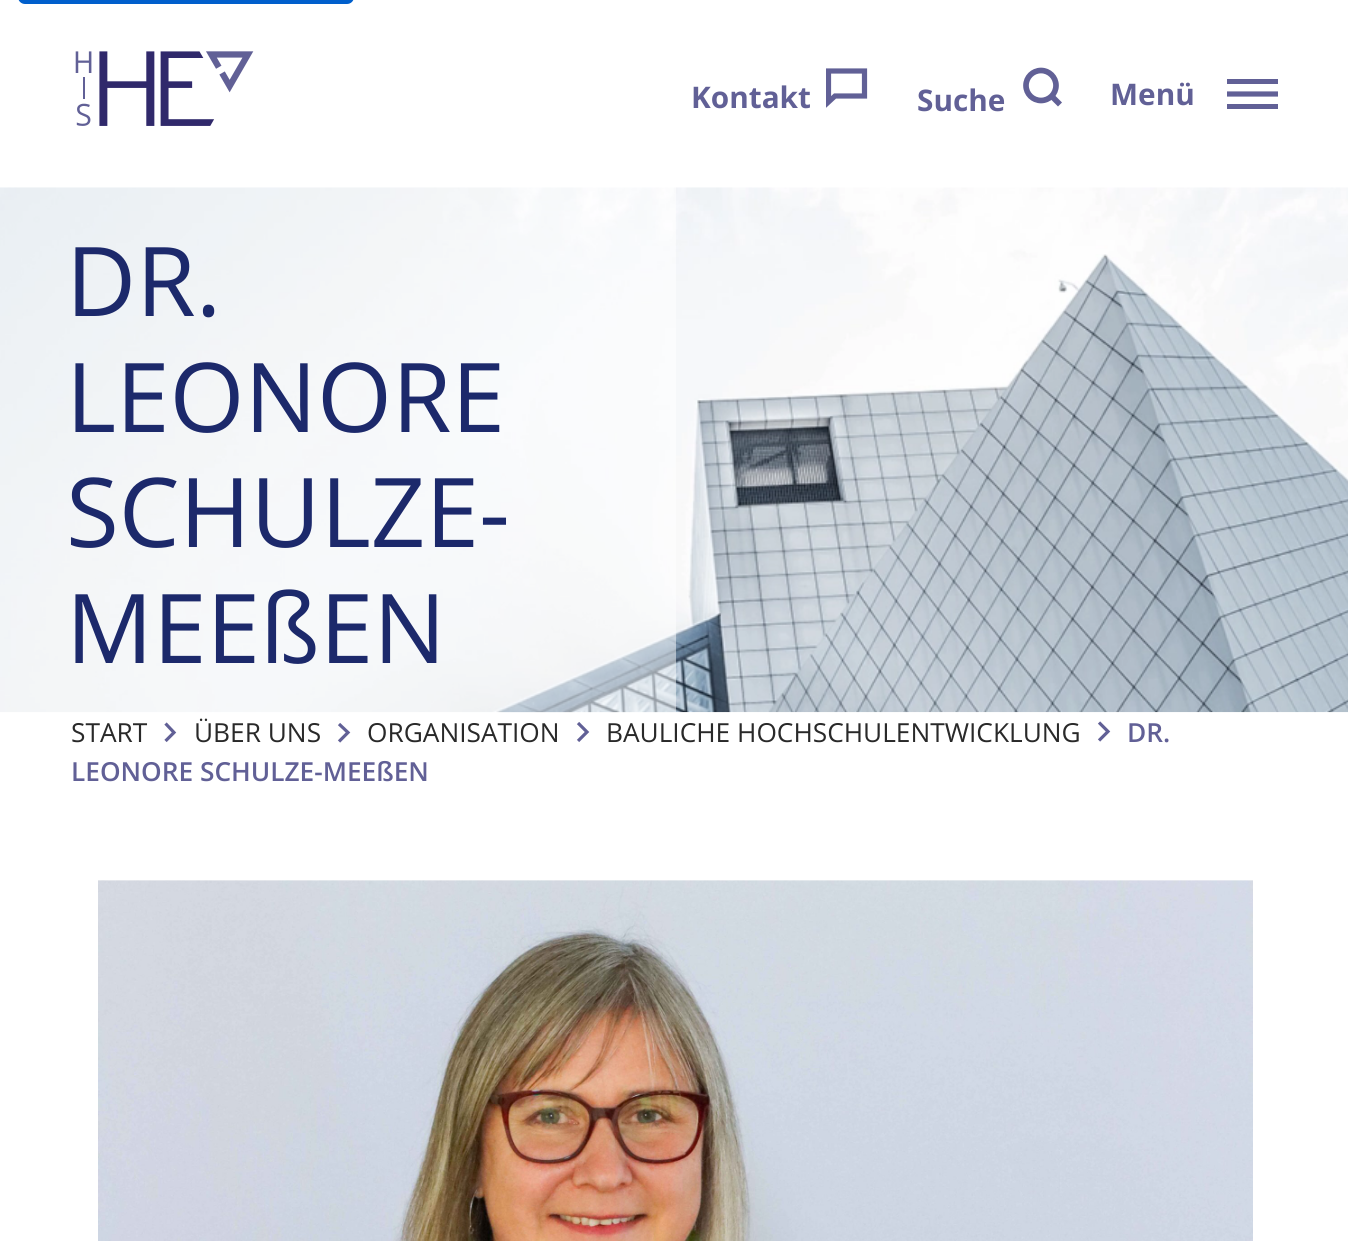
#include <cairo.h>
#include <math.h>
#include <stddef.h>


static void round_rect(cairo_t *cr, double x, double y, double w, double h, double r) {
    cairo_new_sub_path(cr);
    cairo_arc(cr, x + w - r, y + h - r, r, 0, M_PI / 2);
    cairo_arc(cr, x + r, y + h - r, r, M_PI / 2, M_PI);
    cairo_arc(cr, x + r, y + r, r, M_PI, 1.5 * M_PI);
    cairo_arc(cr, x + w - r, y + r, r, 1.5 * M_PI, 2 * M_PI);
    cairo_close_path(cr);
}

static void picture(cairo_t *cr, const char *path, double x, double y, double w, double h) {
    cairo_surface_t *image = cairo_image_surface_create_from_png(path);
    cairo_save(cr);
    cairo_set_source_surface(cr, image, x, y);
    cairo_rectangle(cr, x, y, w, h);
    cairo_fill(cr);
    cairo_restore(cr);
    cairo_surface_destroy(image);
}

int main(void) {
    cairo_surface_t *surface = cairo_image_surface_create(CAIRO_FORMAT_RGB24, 1348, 1241);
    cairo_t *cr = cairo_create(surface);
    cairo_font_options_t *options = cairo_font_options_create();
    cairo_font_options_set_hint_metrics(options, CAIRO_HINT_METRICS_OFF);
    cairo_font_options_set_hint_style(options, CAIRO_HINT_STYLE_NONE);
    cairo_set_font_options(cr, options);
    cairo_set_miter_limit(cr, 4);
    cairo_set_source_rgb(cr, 1, 1, 1);
    cairo_paint(cr);
    cairo_set_source_rgb(cr, 0, 0.373, 0.8);
    round_rect(cr, 18, -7, 336, 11, 7);
    cairo_fill(cr);
    picture(cr, "img1.png", 75, 51, 179, 75);
    cairo_select_font_face(cr, "Open Sans", CAIRO_FONT_SLANT_NORMAL, CAIRO_FONT_WEIGHT_BOLD);
    cairo_set_font_size(cr, 29.75);
    cairo_set_source_rgb(cr, 0.38, 0.376, 0.588);
    cairo_move_to(cr, 691, 108);
    cairo_show_text(cr, "Kontakt");
    cairo_save(cr);
    cairo_rectangle(cr, 826, 68, 42, 41);
    cairo_clip(cr);
    cairo_new_path(cr);
    cairo_move_to(cr, 864.5, 71);
    cairo_line_to(cr, 828.5, 71);
    cairo_line_to(cr, 828.5, 102);
    cairo_line_to(cr, 835, 96);
    cairo_line_to(cr, 864.5, 96);
    cairo_close_path(cr);
    cairo_set_line_width(cr, 5.2);
    cairo_stroke(cr);
    cairo_restore(cr);
    cairo_move_to(cr, 917, 111);
    cairo_show_text(cr, "Suche");
    cairo_new_path(cr);
    cairo_arc(cr, 1041, 85.5, 15, 0, 2 * M_PI);
    cairo_set_line_width(cr, 5.7);
    cairo_stroke(cr);
    cairo_new_path(cr);
    cairo_move_to(cr, 1060, 104.5);
    cairo_line_to(cr, 1052, 96.5);
    cairo_stroke(cr);
    cairo_move_to(cr, 1110, 105);
    cairo_show_text(cr, "Menü");
    cairo_rectangle(cr, 1227, 79, 51, 5);
    cairo_fill(cr);
    cairo_new_path(cr);
    cairo_move_to(cr, 1227, 94);
    cairo_line_to(cr, 1278, 94);
    cairo_set_line_width(cr, 5.2);
    cairo_stroke(cr);
    cairo_rectangle(cr, 1227, 104, 51, 5);
    cairo_fill(cr);
    picture(cr, "img2.png", 0, 187, 1348, 526);
    cairo_set_source_rgba(cr, 1, 1, 1, 0.5);
    cairo_rectangle(cr, 0, 187, 676, 525);
    cairo_fill(cr);
    cairo_select_font_face(cr, "Open Sans", CAIRO_FONT_SLANT_NORMAL, CAIRO_FONT_WEIGHT_NORMAL);
    cairo_set_font_size(cr, 96.25);
    cairo_set_source_rgb(cr, 0.11, 0.161, 0.42);
    cairo_move_to(cr, 66, 316);
    cairo_show_text(cr, "DR.");
    cairo_move_to(cr, 66, 432);
    cairo_show_text(cr, "LEONORE");
    cairo_move_to(cr, 66, 547);
    cairo_show_text(cr, "SCHULZE-");
    cairo_move_to(cr, 66, 663);
    cairo_show_text(cr, "MEEßEN");
    cairo_set_font_size(cr, 26.25);
    cairo_set_source_rgb(cr, 0.161, 0.161, 0.161);
    cairo_move_to(cr, 71, 742);
    cairo_show_text(cr, "START");
    cairo_new_path(cr);
    cairo_move_to(cr, 165.5, 741);
    cairo_line_to(cr, 174, 732.5);
    cairo_line_to(cr, 165.5, 723.5);
    cairo_set_source_rgb(cr, 0.38, 0.376, 0.588);
    cairo_set_line_width(cr, 3.2);
    cairo_stroke(cr);
    cairo_set_source_rgb(cr, 0.161, 0.161, 0.161);
    cairo_move_to(cr, 194, 742);
    cairo_show_text(cr, "ÜBER UNS");
    cairo_new_path(cr);
    cairo_move_to(cr, 339, 741.5);
    cairo_line_to(cr, 348, 732.5);
    cairo_line_to(cr, 339, 724);
    cairo_set_source_rgb(cr, 0.38, 0.376, 0.588);
    cairo_stroke(cr);
    cairo_set_source_rgb(cr, 0.161, 0.161, 0.161);
    cairo_move_to(cr, 367, 742);
    cairo_show_text(cr, "ORGANISATION");
    cairo_new_path(cr);
    cairo_move_to(cr, 578, 741);
    cairo_line_to(cr, 587, 732);
    cairo_line_to(cr, 578, 723);
    cairo_set_source_rgb(cr, 0.38, 0.376, 0.588);
    cairo_stroke(cr);
    cairo_set_source_rgb(cr, 0.161, 0.161, 0.161);
    cairo_move_to(cr, 606, 742);
    cairo_show_text(cr, "BAULICHE HOCHSCHULENTWICKLUNG");
    cairo_new_path(cr);
    cairo_move_to(cr, 1099, 740.5);
    cairo_line_to(cr, 1108, 731.5);
    cairo_line_to(cr, 1099, 722.5);
    cairo_set_source_rgb(cr, 0.38, 0.376, 0.588);
    cairo_stroke(cr);
    cairo_select_font_face(cr, "Open Sans SemiBold", CAIRO_FONT_SLANT_NORMAL, CAIRO_FONT_WEIGHT_NORMAL);
    cairo_move_to(cr, 1127, 742);
    cairo_show_text(cr, "DR.");
    cairo_move_to(cr, 71, 781);
    cairo_show_text(cr, "LEONORE SCHULZE-MEEßEN");
    cairo_set_source_rgb(cr, 0.973, 0.973, 0.973);
    cairo_rectangle(cr, 98, 880, 1155, 1);
    cairo_fill(cr);
    picture(cr, "img3.png", 98, 880, 1155, 361);
    cairo_surface_write_to_png(surface, "page.png");
    cairo_font_options_destroy(options);
    cairo_destroy(cr);
    cairo_surface_destroy(surface);
    return 0;
}
